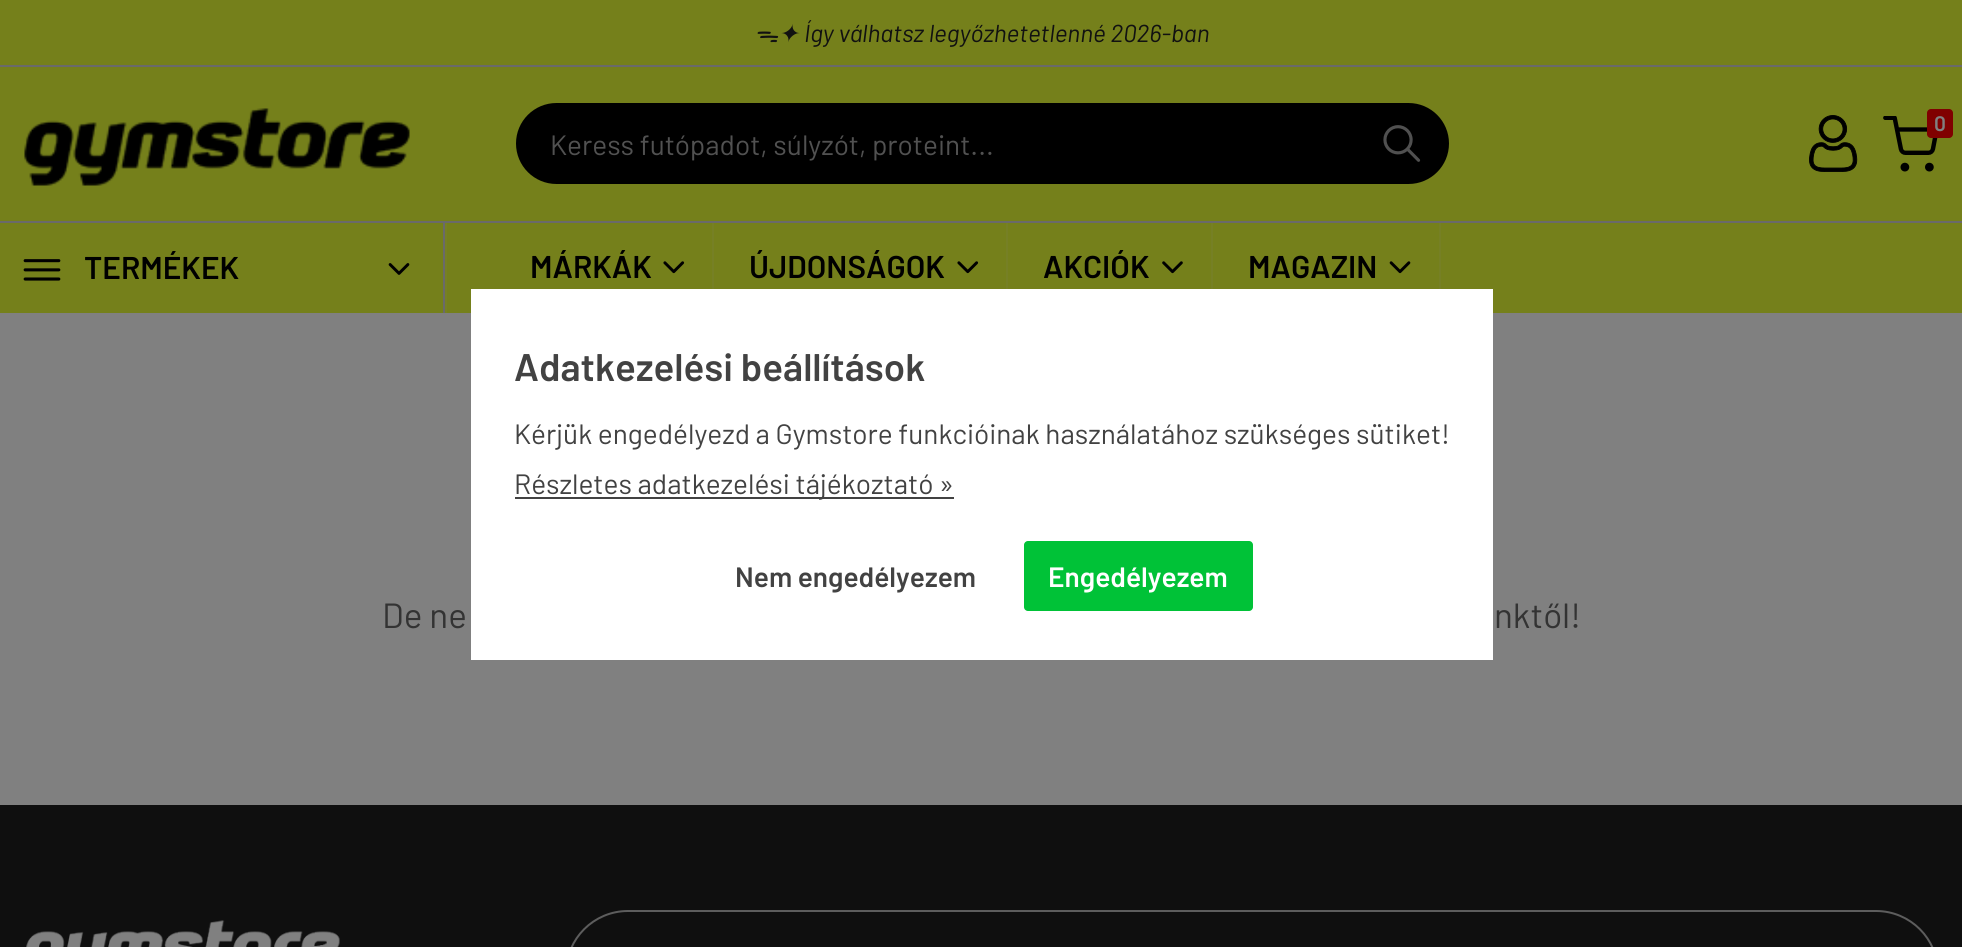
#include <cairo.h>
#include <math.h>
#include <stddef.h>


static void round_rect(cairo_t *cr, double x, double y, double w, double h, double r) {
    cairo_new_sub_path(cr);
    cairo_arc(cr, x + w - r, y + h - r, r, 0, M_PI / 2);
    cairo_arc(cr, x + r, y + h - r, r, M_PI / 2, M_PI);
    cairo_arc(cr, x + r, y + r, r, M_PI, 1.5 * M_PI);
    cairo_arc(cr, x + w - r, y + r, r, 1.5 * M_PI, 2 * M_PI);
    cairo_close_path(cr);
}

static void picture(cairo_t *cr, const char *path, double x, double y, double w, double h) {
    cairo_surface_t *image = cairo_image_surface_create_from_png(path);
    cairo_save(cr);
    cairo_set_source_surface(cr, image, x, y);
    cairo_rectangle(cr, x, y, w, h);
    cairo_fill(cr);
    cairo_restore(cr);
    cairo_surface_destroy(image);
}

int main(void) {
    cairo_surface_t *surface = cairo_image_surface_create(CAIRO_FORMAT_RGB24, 1962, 947);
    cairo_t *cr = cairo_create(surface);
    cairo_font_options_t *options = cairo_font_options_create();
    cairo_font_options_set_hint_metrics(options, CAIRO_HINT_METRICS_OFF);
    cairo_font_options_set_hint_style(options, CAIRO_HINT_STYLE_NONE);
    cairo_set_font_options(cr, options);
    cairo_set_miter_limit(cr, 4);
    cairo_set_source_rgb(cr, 0.502, 0.502, 0.502);
    cairo_paint(cr);
    cairo_set_source_rgb(cr, 0.459, 0.502, 0.106);
    cairo_rectangle(cr, 0, 0, 1962, 65);
    cairo_fill(cr);
    cairo_set_source_rgb(cr, 0.416, 0.416, 0.416);
    cairo_rectangle(cr, 0, 65, 1962, 2);
    cairo_fill(cr);
    cairo_select_font_face(cr, "Noto Sans Batak", CAIRO_FONT_SLANT_ITALIC, CAIRO_FONT_WEIGHT_NORMAL);
    cairo_set_font_size(cr, 24.5);
    cairo_set_source_rgb(cr, 0.067, 0.067, 0.067);
    cairo_move_to(cr, 754, 42);
    cairo_show_text(cr, "ᯓ");
    cairo_select_font_face(cr, "DejaVu Sans", CAIRO_FONT_SLANT_ITALIC, CAIRO_FONT_WEIGHT_NORMAL);
    cairo_move_to(cr, 778, 42);
    cairo_show_text(cr, "✦");
    cairo_select_font_face(cr, "Barlow", CAIRO_FONT_SLANT_ITALIC, CAIRO_FONT_WEIGHT_NORMAL);
    cairo_move_to(cr, 804, 42);
    cairo_show_text(cr, "Így válhatsz legyőzhetetlenné 2026-ban");
    cairo_set_source_rgb(cr, 0.459, 0.502, 0.106);
    cairo_rectangle(cr, 0, 67, 1962, 154);
    cairo_fill(cr);
    picture(cr, "img1.png", 24, 108, 386, 78);
    picture(cr, "img2.png", 1809, 115, 49, 57);
    picture(cr, "img3.png", 1883, 116, 55, 56);
    cairo_set_source_rgb(cr, 0.502, 0, 0);
    round_rect(cr, 1927, 109, 26, 29, 4);
    cairo_fill(cr);
    cairo_select_font_face(cr, "Barlow SemiBold", CAIRO_FONT_SLANT_NORMAL, CAIRO_FONT_WEIGHT_NORMAL);
    cairo_set_font_size(cr, 21);
    cairo_set_source_rgb(cr, 0.502, 0.502, 0.502);
    cairo_move_to(cr, 1934, 131);
    cairo_show_text(cr, "0");
    cairo_set_source_rgb(cr, 0, 0, 0);
    round_rect(cr, 516, 103, 933, 81, 40.5);
    cairo_fill(cr);
    cairo_select_font_face(cr, "Barlow", CAIRO_FONT_SLANT_NORMAL, CAIRO_FONT_WEIGHT_NORMAL);
    cairo_set_font_size(cr, 28);
    cairo_set_source_rgb(cr, 0.318, 0.318, 0.318);
    cairo_move_to(cr, 550, 155);
    cairo_show_text(cr, "Keress futópadot, súlyzót, proteint...");
    picture(cr, "img4.png", 1383, 125, 38, 37);
    cairo_set_source_rgb(cr, 0.459, 0.502, 0.106);
    cairo_rectangle(cr, 0, 223, 1962, 90);
    cairo_fill(cr);
    cairo_set_source_rgb(cr, 0.463, 0.502, 0.145);
    cairo_rectangle(cr, 1439, 222, 2, 67);
    cairo_fill(cr);
    cairo_rectangle(cr, 1211, 222, 2, 67);
    cairo_fill(cr);
    cairo_rectangle(cr, 1006, 222, 2, 67);
    cairo_fill(cr);
    cairo_rectangle(cr, 712, 222, 2, 67);
    cairo_fill(cr);
    cairo_rectangle(cr, 445, 222, 2, 91);
    cairo_fill(cr);
    cairo_set_source_rgb(cr, 0.416, 0.416, 0.416);
    cairo_rectangle(cr, 0, 221, 1962, 2);
    cairo_fill(cr);
    cairo_rectangle(cr, 443, 222, 2, 91);
    cairo_fill(cr);
    picture(cr, "img5.png", 23, 259, 38, 22);
    cairo_select_font_face(cr, "Barlow SemiBold", CAIRO_FONT_SLANT_NORMAL, CAIRO_FONT_WEIGHT_NORMAL);
    cairo_set_font_size(cr, 31.5);
    cairo_set_source_rgb(cr, 0, 0, 0);
    cairo_move_to(cr, 84, 279);
    cairo_show_text(cr, "TERMÉKEK");
    picture(cr, "img6.png", 388, 263, 22, 12);
    cairo_move_to(cr, 530, 278);
    cairo_show_text(cr, "MÁRKÁK");
    picture(cr, "img7.png", 663, 261, 22, 13);
    cairo_move_to(cr, 749, 278);
    cairo_show_text(cr, "ÚJDONSÁGOK");
    picture(cr, "img7.png", 957, 261, 22, 13);
    cairo_move_to(cr, 1043, 278);
    cairo_show_text(cr, "AKCIÓK");
    picture(cr, "img8.png", 1162, 261, 21, 13);
    cairo_move_to(cr, 1248, 278);
    cairo_show_text(cr, "MAGAZIN");
    picture(cr, "img9.png", 1389, 261, 22, 13);
    cairo_set_source_rgb(cr, 1, 1, 1);
    cairo_rectangle(cr, 471, 289, 1022, 371);
    cairo_fill(cr);
    cairo_set_font_size(cr, 38.5);
    cairo_set_source_rgb(cr, 0.259, 0.259, 0.259);
    cairo_move_to(cr, 514, 381);
    cairo_show_text(cr, "Adatkezelési beállítások");
    cairo_select_font_face(cr, "Barlow", CAIRO_FONT_SLANT_NORMAL, CAIRO_FONT_WEIGHT_NORMAL);
    cairo_set_font_size(cr, 28);
    cairo_move_to(cr, 514, 444);
    cairo_show_text(cr, "Kérjük engedélyezd a Gymstore funkcióinak használatához szükséges sütiket!");
    cairo_rectangle(cr, 515, 497, 439, 2);
    cairo_fill(cr);
    cairo_move_to(cr, 514, 494);
    cairo_show_text(cr, "Részletes adatkezelési tájékoztató »");
    cairo_select_font_face(cr, "Barlow SemiBold", CAIRO_FONT_SLANT_NORMAL, CAIRO_FONT_WEIGHT_NORMAL);
    cairo_move_to(cr, 735, 587);
    cairo_show_text(cr, "Nem engedélyezem");
    cairo_set_source_rgb(cr, 0, 0.761, 0.216);
    round_rect(cr, 1024, 541, 229, 70, 4);
    cairo_fill(cr);
    cairo_set_source_rgb(cr, 1, 1, 1);
    cairo_move_to(cr, 1048, 587);
    cairo_show_text(cr, "Engedélyezem");
    cairo_select_font_face(cr, "Barlow", CAIRO_FONT_SLANT_NORMAL, CAIRO_FONT_WEIGHT_NORMAL);
    cairo_set_font_size(cr, 35);
    cairo_set_source_rgb(cr, 0.2, 0.2, 0.2);
    cairo_move_to(cr, 382, 628);
    cairo_show_text(cr, "De ne");
    cairo_move_to(cr, 1494, 628);
    cairo_show_text(cr, "nktől!");
    cairo_set_source_rgb(cr, 0.059, 0.059, 0.059);
    cairo_rectangle(cr, 0, 805, 1962, 142);
    cairo_fill(cr);
    picture(cr, "img10.png", 26, 920, 314, 27);
    round_rect(cr, 566, 911, 1372, 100, 62);
    cairo_set_source_rgb(cr, 0.365, 0.365, 0.365);
    cairo_stroke(cr);
    cairo_surface_write_to_png(surface, "page.png");
    cairo_font_options_destroy(options);
    cairo_destroy(cr);
    cairo_surface_destroy(surface);
    return 0;
}
